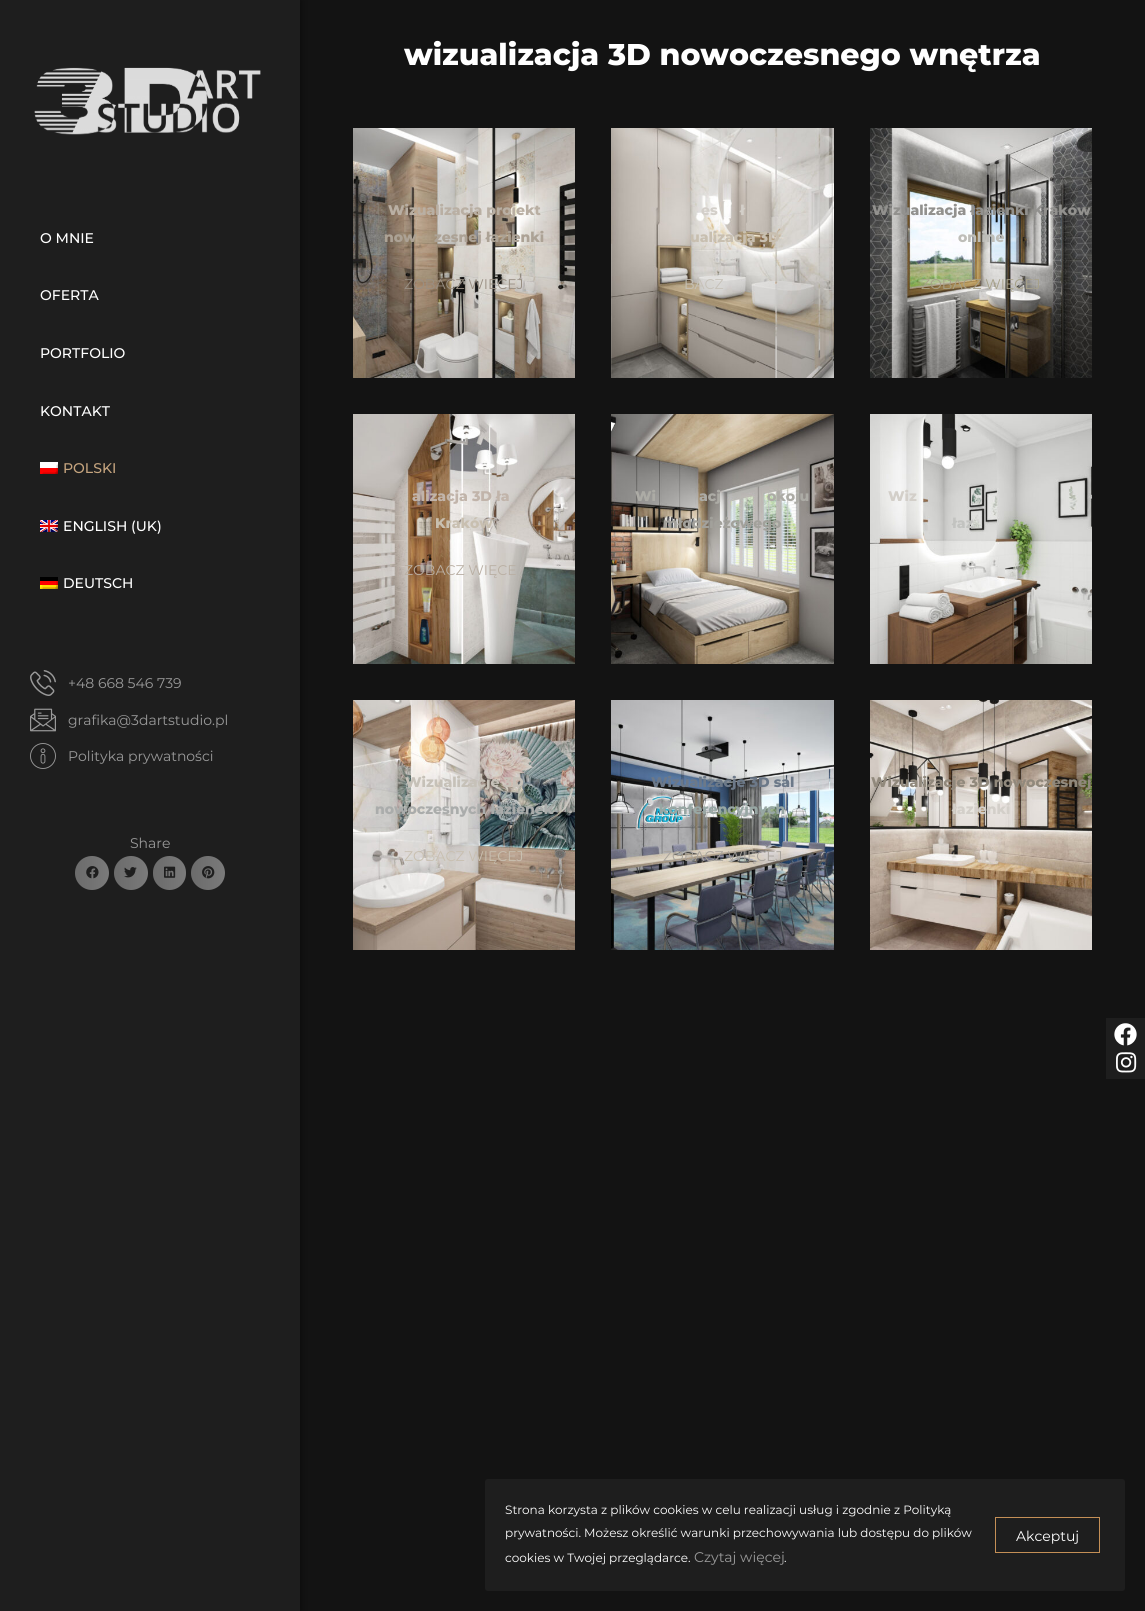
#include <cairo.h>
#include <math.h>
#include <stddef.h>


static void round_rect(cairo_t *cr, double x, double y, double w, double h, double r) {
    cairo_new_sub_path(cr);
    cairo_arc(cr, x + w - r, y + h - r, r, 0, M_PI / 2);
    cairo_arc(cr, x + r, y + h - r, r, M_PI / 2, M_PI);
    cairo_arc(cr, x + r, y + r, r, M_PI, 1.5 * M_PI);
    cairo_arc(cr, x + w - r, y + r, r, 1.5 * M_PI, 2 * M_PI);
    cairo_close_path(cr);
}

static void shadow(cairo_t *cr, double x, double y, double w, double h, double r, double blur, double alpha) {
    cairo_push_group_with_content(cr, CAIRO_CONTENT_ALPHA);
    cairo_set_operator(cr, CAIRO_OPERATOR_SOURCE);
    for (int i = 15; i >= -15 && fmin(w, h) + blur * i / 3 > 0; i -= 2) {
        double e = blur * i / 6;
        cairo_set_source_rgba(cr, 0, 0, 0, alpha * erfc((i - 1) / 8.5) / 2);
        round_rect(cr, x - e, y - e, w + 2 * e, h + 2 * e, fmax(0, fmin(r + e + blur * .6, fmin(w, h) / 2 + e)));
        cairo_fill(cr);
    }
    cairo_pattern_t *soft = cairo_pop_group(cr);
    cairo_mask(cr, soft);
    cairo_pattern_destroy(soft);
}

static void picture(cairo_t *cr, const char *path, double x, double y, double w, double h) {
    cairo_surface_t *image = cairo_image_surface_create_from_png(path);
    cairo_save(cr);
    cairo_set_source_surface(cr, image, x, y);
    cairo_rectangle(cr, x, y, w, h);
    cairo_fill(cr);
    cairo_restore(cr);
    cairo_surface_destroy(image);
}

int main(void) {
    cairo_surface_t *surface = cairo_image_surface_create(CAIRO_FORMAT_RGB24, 1145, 1611);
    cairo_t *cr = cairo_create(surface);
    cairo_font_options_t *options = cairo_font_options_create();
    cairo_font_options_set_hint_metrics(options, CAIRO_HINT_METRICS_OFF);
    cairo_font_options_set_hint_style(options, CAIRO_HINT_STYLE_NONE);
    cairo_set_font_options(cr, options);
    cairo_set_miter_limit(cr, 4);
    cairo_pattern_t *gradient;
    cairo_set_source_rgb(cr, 0.078, 0.078, 0.078);
    cairo_paint(cr);
    cairo_set_source_rgb(cr, 0, 0, 0);
    shadow(cr, 0, 0, 300, 1611, 0, 5, 0.5);
    cairo_set_source_rgb(cr, 0.118, 0.118, 0.118);
    cairo_rectangle(cr, 0, 0, 300, 1611);
    cairo_fill(cr);
    picture(cr, "img1.png", 34, 67, 227, 68);
    cairo_select_font_face(cr, "Montserrat Medium", CAIRO_FONT_SLANT_NORMAL, CAIRO_FONT_WEIGHT_NORMAL);
    cairo_set_font_size(cr, 14);
    cairo_set_source_rgb(cr, 1, 1, 1);
    cairo_move_to(cr, 40, 243);
    cairo_show_text(cr, "O MNIE");
    cairo_move_to(cr, 40, 300);
    cairo_show_text(cr, "OFERTA");
    cairo_move_to(cr, 40, 358);
    cairo_show_text(cr, "PORTFOLIO");
    cairo_move_to(cr, 40, 416);
    cairo_show_text(cr, "KONTAKT");
    picture(cr, "img2.png", 40, 462, 18, 12);
    cairo_set_source_rgb(cr, 0.773, 0.643, 0.494);
    cairo_move_to(cr, 63, 473);
    cairo_show_text(cr, "POLSKI");
    picture(cr, "img3.png", 40, 520, 18, 12);
    cairo_set_source_rgb(cr, 1, 1, 1);
    cairo_move_to(cr, 63, 531);
    cairo_show_text(cr, "ENGLISH (UK)");
    picture(cr, "img4.png", 40, 577, 18, 12);
    cairo_move_to(cr, 63, 588);
    cairo_show_text(cr, "DEUTSCH");
    picture(cr, "img5.png", 30, 670, 26, 26);
    cairo_select_font_face(cr, "Montserrat", CAIRO_FONT_SLANT_NORMAL, CAIRO_FONT_WEIGHT_NORMAL);
    cairo_set_source_rgb(cr, 0.6, 0.6, 0.6);
    cairo_move_to(cr, 68, 688);
    cairo_show_text(cr, "+48 668 546 739");
    picture(cr, "img6.png", 30, 708, 26, 24);
    cairo_move_to(cr, 68, 725);
    cairo_show_text(cr, "grafika@3dartstudio.pl");
    picture(cr, "img7.png", 30, 743, 26, 26);
    cairo_move_to(cr, 68, 761);
    cairo_show_text(cr, "Polityka prywatności");
    cairo_move_to(cr, 130, 848);
    cairo_show_text(cr, "Share");
    cairo_set_source_rgb(cr, 0.478, 0.478, 0.478);
    cairo_new_path(cr);
    cairo_arc(cr, 92, 873, 17, 0, 2 * M_PI);
    cairo_fill(cr);
    gradient = cairo_pattern_create_linear(75, 873, 109, 873);
    cairo_pattern_add_color_stop_rgba(gradient, 0, 0, 0, 0, 0.12);
    cairo_pattern_add_color_stop_rgba(gradient, 1, 0, 0, 0, 0);
    cairo_set_source(cr, gradient);
    cairo_pattern_destroy(gradient);
    cairo_arc(cr, 92, 873, 17, 0, 2 * M_PI);
    cairo_fill(cr);
    picture(cr, "img8.png", 86, 866, 13, 13);
    cairo_set_source_rgb(cr, 0.478, 0.478, 0.478);
    cairo_arc(cr, 131, 873, 17, 0, 2 * M_PI);
    cairo_fill(cr);
    gradient = cairo_pattern_create_linear(114, 873, 148, 873);
    cairo_pattern_add_color_stop_rgba(gradient, 0, 0, 0, 0, 0.12);
    cairo_pattern_add_color_stop_rgba(gradient, 1, 0, 0, 0, 0);
    cairo_set_source(cr, gradient);
    cairo_pattern_destroy(gradient);
    cairo_arc(cr, 131, 873, 17, 0, 2 * M_PI);
    cairo_fill(cr);
    picture(cr, "img9.png", 124, 867, 13, 11);
    cairo_set_source_rgb(cr, 0.478, 0.478, 0.478);
    round_rect(cr, 153, 856, 33, 34, 16.5);
    cairo_fill(cr);
    gradient = cairo_pattern_create_linear(153, 873, 186, 873);
    cairo_pattern_add_color_stop_rgba(gradient, 0, 0, 0, 0, 0.12);
    cairo_pattern_add_color_stop_rgba(gradient, 1, 0, 0, 0, 0);
    cairo_set_source(cr, gradient);
    cairo_pattern_destroy(gradient);
    round_rect(cr, 153, 856, 33, 34, 16.5);
    cairo_fill(cr);
    picture(cr, "img10.png", 164, 866, 12, 12);
    cairo_set_source_rgb(cr, 0.478, 0.478, 0.478);
    cairo_arc(cr, 208, 873, 17, 0, 2 * M_PI);
    cairo_fill(cr);
    gradient = cairo_pattern_create_linear(191, 873, 225, 873);
    cairo_pattern_add_color_stop_rgba(gradient, 0, 0, 0, 0, 0.12);
    cairo_pattern_add_color_stop_rgba(gradient, 1, 0, 0, 0, 0);
    cairo_set_source(cr, gradient);
    cairo_pattern_destroy(gradient);
    cairo_arc(cr, 208, 873, 17, 0, 2 * M_PI);
    cairo_fill(cr);
    picture(cr, "img11.png", 202, 866, 13, 13);
    cairo_set_source_rgb(cr, 0.118, 0.118, 0.118);
    cairo_rectangle(cr, 1106, 1018, 39, 61);
    cairo_fill(cr);
    picture(cr, "img12.png", 1114, 1023, 23, 23);
    picture(cr, "img13.png", 1116, 1052, 21, 21);
    cairo_select_font_face(cr, "Montserrat ExtraBold", CAIRO_FONT_SLANT_NORMAL, CAIRO_FONT_WEIGHT_NORMAL);
    cairo_set_font_size(cr, 30);
    cairo_set_source_rgb(cr, 1, 1, 1);
    cairo_move_to(cr, 404, 65);
    cairo_show_text(cr, "wizualizacja 3D nowoczesnego wnętrza");
    picture(cr, "img14.png", 353, 128, 222, 250);
    cairo_set_font_size(cr, 14);
    cairo_set_source_rgb(cr, 0.725, 0.686, 0.639);
    cairo_move_to(cr, 388, 215);
    cairo_show_text(cr, "Wizualizacja projekt");
    cairo_set_source_rgb(cr, 0.675, 0.635, 0.584);
    cairo_move_to(cr, 384, 242);
    cairo_show_text(cr, "now");
    cairo_move_to(cr, 434, 242);
    cairo_show_text(cr, "zesnej łazienki");
    cairo_select_font_face(cr, "Montserrat", CAIRO_FONT_SLANT_NORMAL, CAIRO_FONT_WEIGHT_NORMAL);
    cairo_set_source_rgb(cr, 0.6, 0.561, 0.514);
    cairo_move_to(cr, 404, 289);
    cairo_show_text(cr, "ZOBACZ WIĘCEJ");
    picture(cr, "img15.png", 611, 128, 223, 250);
    cairo_select_font_face(cr, "Montserrat ExtraBold", CAIRO_FONT_SLANT_NORMAL, CAIRO_FONT_WEIGHT_NORMAL);
    cairo_set_source_rgb(cr, 0.827, 0.812, 0.788);
    cairo_move_to(cr, 701, 215);
    cairo_show_text(cr, "es");
    cairo_move_to(cr, 740, 215);
    cairo_show_text(cr, "ł");
    cairo_set_source_rgb(cr, 0.784, 0.749, 0.69);
    cairo_move_to(cr, 690, 242);
    cairo_show_text(cr, "ualizacja 3D");
    cairo_select_font_face(cr, "Montserrat", CAIRO_FONT_SLANT_NORMAL, CAIRO_FONT_WEIGHT_NORMAL);
    cairo_set_source_rgb(cr, 0.776, 0.757, 0.722);
    cairo_move_to(cr, 684, 289);
    cairo_show_text(cr, "BACZ");
    picture(cr, "img16.png", 870, 128, 222, 250);
    cairo_select_font_face(cr, "Montserrat ExtraBold", CAIRO_FONT_SLANT_NORMAL, CAIRO_FONT_WEIGHT_NORMAL);
    cairo_set_source_rgb(cr, 0.573, 0.569, 0.557);
    cairo_move_to(cr, 872, 215);
    cairo_show_text(cr, "Wizualizacja łazienki Kraków");
    cairo_set_source_rgb(cr, 0.745, 0.745, 0.725);
    cairo_move_to(cr, 958, 242);
    cairo_show_text(cr, "online");
    cairo_select_font_face(cr, "Montserrat", CAIRO_FONT_SLANT_NORMAL, CAIRO_FONT_WEIGHT_NORMAL);
    cairo_set_source_rgb(cr, 0.655, 0.631, 0.537);
    cairo_move_to(cr, 921, 289);
    cairo_show_text(cr, "ZOBACZ WIĘCEJ");
    picture(cr, "img17.png", 353, 414, 222, 250);
    cairo_select_font_face(cr, "Montserrat ExtraBold", CAIRO_FONT_SLANT_NORMAL, CAIRO_FONT_WEIGHT_NORMAL);
    cairo_set_source_rgb(cr, 0.757, 0.706, 0.667);
    cairo_move_to(cr, 412, 501);
    cairo_show_text(cr, "alizacja 3D ła");
    cairo_set_source_rgb(cr, 0.784, 0.749, 0.69);
    cairo_move_to(cr, 435, 528);
    cairo_show_text(cr, "Kraków");
    cairo_select_font_face(cr, "Montserrat", CAIRO_FONT_SLANT_NORMAL, CAIRO_FONT_WEIGHT_NORMAL);
    cairo_set_source_rgb(cr, 0.725, 0.686, 0.639);
    cairo_move_to(cr, 404, 575);
    cairo_show_text(cr, "ZOBACZ WIĘCE");
    picture(cr, "img18.png", 611, 414, 223, 250);
    cairo_select_font_face(cr, "Montserrat ExtraBold", CAIRO_FONT_SLANT_NORMAL, CAIRO_FONT_WEIGHT_NORMAL);
    cairo_set_source_rgb(cr, 0.675, 0.671, 0.647);
    cairo_move_to(cr, 635, 501);
    cairo_show_text(cr, "Wi");
    cairo_move_to(cr, 699, 501);
    cairo_show_text(cr, "acj");
    cairo_move_to(cr, 767, 501);
    cairo_show_text(cr, "okoju");
    cairo_set_source_rgb(cr, 0.635, 0.631, 0.608);
    cairo_move_to(cr, 663, 528);
    cairo_show_text(cr, "młodzieżowego");
    picture(cr, "img19.png", 870, 414, 222, 250);
    cairo_set_source_rgb(cr, 0.827, 0.812, 0.788);
    cairo_move_to(cr, 888, 501);
    cairo_show_text(cr, "Wiz");
    cairo_set_source_rgb(cr, 0.761, 0.765, 0.753);
    cairo_move_to(cr, 952, 528);
    cairo_show_text(cr, "łaz");
    picture(cr, "img20.png", 353, 700, 222, 250);
    cairo_set_source_rgb(cr, 0.776, 0.757, 0.722);
    cairo_move_to(cr, 405, 787);
    cairo_show_text(cr, "Wizualizacje 3D");
    cairo_set_source_rgb(cr, 0.667, 0.675, 0.671);
    cairo_move_to(cr, 375, 814);
    cairo_show_text(cr, "nowoczesnych łazienek");
    cairo_select_font_face(cr, "Montserrat", CAIRO_FONT_SLANT_NORMAL, CAIRO_FONT_WEIGHT_NORMAL);
    cairo_set_source_rgb(cr, 0.784, 0.749, 0.69);
    cairo_move_to(cr, 404, 861);
    cairo_show_text(cr, "ZOBACZ WIĘCEJ");
    picture(cr, "img21.png", 611, 700, 223, 250);
    cairo_select_font_face(cr, "Montserrat ExtraBold", CAIRO_FONT_SLANT_NORMAL, CAIRO_FONT_WEIGHT_NORMAL);
    cairo_set_source_rgb(cr, 0.424, 0.475, 0.537);
    cairo_move_to(cr, 651, 787);
    cairo_show_text(cr, "Wizualizacje 3D sal");
    cairo_set_source_rgb(cr, 0.596, 0.655, 0.643);
    cairo_move_to(cr, 659, 814);
    cairo_show_text(cr, "konferencyjnych");
    cairo_select_font_face(cr, "Montserrat", CAIRO_FONT_SLANT_NORMAL, CAIRO_FONT_WEIGHT_NORMAL);
    cairo_set_source_rgb(cr, 0.659, 0.639, 0.612);
    cairo_move_to(cr, 663, 861);
    cairo_show_text(cr, "ZOBACZ WIĘCEJ");
    picture(cr, "img22.png", 870, 700, 222, 250);
    cairo_select_font_face(cr, "Montserrat ExtraBold", CAIRO_FONT_SLANT_NORMAL, CAIRO_FONT_WEIGHT_NORMAL);
    cairo_set_source_rgb(cr, 0.569, 0.537, 0.486);
    cairo_move_to(cr, 871, 787);
    cairo_show_text(cr, "Wizualizacje 3D nowoczesnej");
    cairo_set_source_rgb(cr, 0.827, 0.812, 0.788);
    cairo_move_to(cr, 952, 814);
    cairo_show_text(cr, "łazienki");
    cairo_set_source_rgb(cr, 0.118, 0.118, 0.118);
    round_rect(cr, 485, 1479, 640, 112, 3);
    cairo_fill(cr);
    cairo_select_font_face(cr, "Montserrat", CAIRO_FONT_SLANT_NORMAL, CAIRO_FONT_WEIGHT_NORMAL);
    cairo_set_font_size(cr, 12);
    cairo_set_source_rgb(cr, 1, 1, 1);
    cairo_move_to(cr, 505, 1514);
    cairo_show_text(cr, "Strona korzysta z plików cookies w celu realizacji usług i zgodnie z Polityką");
    cairo_move_to(cr, 505, 1537);
    cairo_show_text(cr, "prywatności. Możesz określić warunki przechowywania lub dostępu do plików");
    cairo_move_to(cr, 505, 1562);
    cairo_show_text(cr, "cookies w Twojej przeglądarce.");
    cairo_set_font_size(cr, 14);
    cairo_set_source_rgb(cr, 0.6, 0.6, 0.6);
    cairo_move_to(cr, 694, 1562);
    cairo_show_text(cr, "Czytaj więcej");
    cairo_set_font_size(cr, 12);
    cairo_set_source_rgb(cr, 1, 1, 1);
    cairo_move_to(cr, 784, 1562);
    cairo_show_text(cr, ".");
    cairo_rectangle(cr, 995.5, 1517.5, 104, 35);
    cairo_set_source_rgb(cr, 0.769, 0.561, 0.337);
    cairo_set_line_width(cr, 1);
    cairo_stroke(cr);
    cairo_set_font_size(cr, 14);
    cairo_set_source_rgb(cr, 1, 1, 1);
    cairo_move_to(cr, 1016, 1541);
    cairo_show_text(cr, "Akceptuj");
    cairo_surface_write_to_png(surface, "page.png");
    cairo_font_options_destroy(options);
    cairo_destroy(cr);
    cairo_surface_destroy(surface);
    return 0;
}
